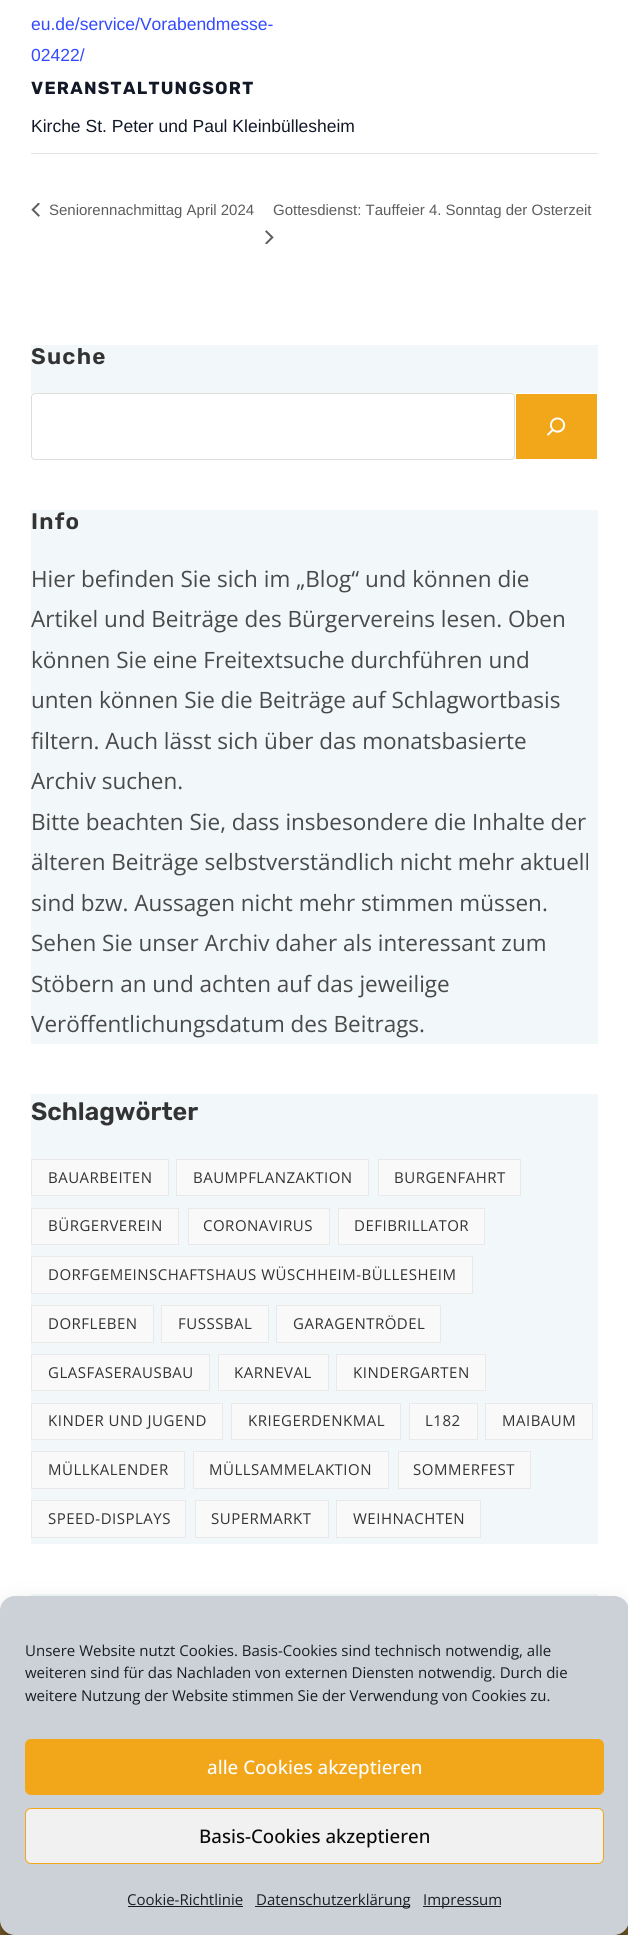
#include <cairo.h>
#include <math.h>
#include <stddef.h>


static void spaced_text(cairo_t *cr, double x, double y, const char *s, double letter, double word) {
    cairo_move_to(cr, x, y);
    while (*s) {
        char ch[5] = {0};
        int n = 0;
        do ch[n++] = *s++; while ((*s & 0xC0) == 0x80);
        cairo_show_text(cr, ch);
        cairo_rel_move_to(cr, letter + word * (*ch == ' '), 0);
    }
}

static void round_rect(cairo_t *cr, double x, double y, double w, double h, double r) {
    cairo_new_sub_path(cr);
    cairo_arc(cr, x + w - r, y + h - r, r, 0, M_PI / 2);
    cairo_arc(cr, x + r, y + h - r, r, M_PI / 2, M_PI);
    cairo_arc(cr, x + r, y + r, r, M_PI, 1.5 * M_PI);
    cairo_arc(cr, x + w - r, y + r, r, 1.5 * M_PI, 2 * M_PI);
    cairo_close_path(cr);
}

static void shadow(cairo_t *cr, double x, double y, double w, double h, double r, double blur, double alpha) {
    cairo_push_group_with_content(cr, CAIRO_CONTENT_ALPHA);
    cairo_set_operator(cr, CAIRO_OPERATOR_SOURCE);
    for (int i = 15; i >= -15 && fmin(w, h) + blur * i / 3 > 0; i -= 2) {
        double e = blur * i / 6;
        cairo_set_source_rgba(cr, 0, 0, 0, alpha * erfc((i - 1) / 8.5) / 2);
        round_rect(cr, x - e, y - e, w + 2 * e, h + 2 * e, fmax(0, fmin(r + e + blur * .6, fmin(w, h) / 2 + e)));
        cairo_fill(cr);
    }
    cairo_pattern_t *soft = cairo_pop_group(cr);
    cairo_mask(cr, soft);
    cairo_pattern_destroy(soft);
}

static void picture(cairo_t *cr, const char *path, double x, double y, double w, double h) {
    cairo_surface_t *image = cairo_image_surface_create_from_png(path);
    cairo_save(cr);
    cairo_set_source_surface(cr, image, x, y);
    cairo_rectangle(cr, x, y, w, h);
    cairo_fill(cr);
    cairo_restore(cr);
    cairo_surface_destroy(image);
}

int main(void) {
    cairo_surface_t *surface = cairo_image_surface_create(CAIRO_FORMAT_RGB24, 628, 1935);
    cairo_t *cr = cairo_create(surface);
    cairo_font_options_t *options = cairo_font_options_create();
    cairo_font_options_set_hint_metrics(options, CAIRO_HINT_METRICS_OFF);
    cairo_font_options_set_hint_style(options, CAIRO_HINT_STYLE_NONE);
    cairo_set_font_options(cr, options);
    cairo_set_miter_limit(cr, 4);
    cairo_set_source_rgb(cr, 1, 1, 1);
    cairo_paint(cr);
    cairo_select_font_face(cr, "Liberation Sans", CAIRO_FONT_SLANT_NORMAL, CAIRO_FONT_WEIGHT_NORMAL);
    cairo_set_font_size(cr, 17.5);
    cairo_set_source_rgb(cr, 0.2, 0.29, 1);
    cairo_move_to(cr, 31, 30);
    cairo_show_text(cr, "eu.de/service/Vorabendmesse-");
    cairo_move_to(cr, 31, 61);
    cairo_show_text(cr, "02422/");
    cairo_select_font_face(cr, "Rubik", CAIRO_FONT_SLANT_NORMAL, CAIRO_FONT_WEIGHT_BOLD);
    cairo_set_source_rgb(cr, 0.078, 0.094, 0.153);
    spaced_text(cr, 31, 94, "VERANSTALTUNGSORT", 1.25, 0);
    cairo_select_font_face(cr, "Liberation Sans", CAIRO_FONT_SLANT_NORMAL, CAIRO_FONT_WEIGHT_NORMAL);
    cairo_move_to(cr, 31, 132);
    cairo_show_text(cr, "Kirche St. Peter und Paul Kleinbüllesheim");
    cairo_set_source_rgb(cr, 0.894, 0.894, 0.894);
    cairo_rectangle(cr, 31, 153, 567, 1);
    cairo_fill(cr);
    picture(cr, "img1.png", 31, 203, 9, 14);
    cairo_set_font_size(cr, 15);
    cairo_set_source_rgb(cr, 0.365, 0.365, 0.365);
    cairo_move_to(cr, 49, 215);
    cairo_show_text(cr, "Seniorennachmittag April 2024");
    cairo_move_to(cr, 273, 215);
    cairo_show_text(cr, "Gottesdienst: Tauffeier 4. Sonntag der Osterzeit");
    picture(cr, "img2.png", 265, 230, 9, 14);
    cairo_set_source_rgb(cr, 0.949, 0.965, 0.976);
    cairo_rectangle(cr, 31, 345, 567, 48);
    cairo_fill(cr);
    cairo_select_font_face(cr, "Rubik SemiBold", CAIRO_FONT_SLANT_NORMAL, CAIRO_FONT_WEIGHT_NORMAL);
    cairo_set_font_size(cr, 22.5);
    cairo_set_source_rgb(cr, 0.2, 0.2, 0.2);
    spaced_text(cr, 31, 364, "Suche", 1.25, 0);
    round_rect(cr, 31.5, 393.5, 483, 66, 3.5);
    cairo_set_source_rgb(cr, 0.867, 0.867, 0.867);
    cairo_set_line_width(cr, 1);
    cairo_stroke(cr);
    cairo_set_source_rgb(cr, 0.949, 0.655, 0.106);
    cairo_rectangle(cr, 516, 394, 81, 65);
    cairo_fill(cr);
    picture(cr, "img3.png", 547, 417, 19, 19);
    cairo_set_source_rgb(cr, 0.949, 0.965, 0.976);
    cairo_rectangle(cr, 31, 510, 567, 534);
    cairo_fill(cr);
    cairo_set_source_rgb(cr, 0.2, 0.2, 0.2);
    spaced_text(cr, 31, 529, "Info", 1.25, 0);
    cairo_select_font_face(cr, "Open Sans", CAIRO_FONT_SLANT_NORMAL, CAIRO_FONT_WEIGHT_NORMAL);
    cairo_set_source_rgb(cr, 0.29, 0.29, 0.29);
    cairo_move_to(cr, 31, 587);
    cairo_show_text(cr, "Hier befinden Sie sich im „Blog“ und können die");
    cairo_move_to(cr, 31, 627);
    cairo_show_text(cr, "Artikel und Beiträge des Bürgervereins lesen. Oben");
    cairo_move_to(cr, 31, 668);
    cairo_show_text(cr, "können Sie eine Freitextsuche durchführen und");
    cairo_move_to(cr, 31, 708);
    cairo_show_text(cr, "unten können Sie die Beiträge auf Schlagwortbasis");
    cairo_move_to(cr, 31, 749);
    cairo_show_text(cr, "filtern. Auch lässt sich über das monatsbasierte");
    cairo_move_to(cr, 31, 789);
    cairo_show_text(cr, "Archiv suchen.");
    cairo_move_to(cr, 31, 830);
    cairo_show_text(cr, "Bitte beachten Sie, dass insbesondere die Inhalte der");
    cairo_move_to(cr, 31, 870);
    cairo_show_text(cr, "älteren Beiträge selbstverständlich nicht mehr aktuell");
    cairo_move_to(cr, 31, 911);
    cairo_show_text(cr, "sind bzw. Aussagen nicht mehr stimmen müssen.");
    cairo_move_to(cr, 31, 951);
    cairo_show_text(cr, "Sehen Sie unser Archiv daher als interessant zum");
    cairo_move_to(cr, 31, 992);
    cairo_show_text(cr, "Stöbern an und achten auf das jeweilige");
    cairo_move_to(cr, 31, 1032);
    cairo_show_text(cr, "Veröffentlichungsdatum des Beitrags.");
    cairo_set_source_rgb(cr, 0.949, 0.965, 0.976);
    cairo_rectangle(cr, 31, 1094, 567, 450);
    cairo_fill(cr);
    cairo_select_font_face(cr, "Rubik SemiBold", CAIRO_FONT_SLANT_NORMAL, CAIRO_FONT_WEIGHT_NORMAL);
    cairo_set_font_size(cr, 25);
    cairo_set_source_rgb(cr, 0.2, 0.2, 0.2);
    cairo_move_to(cr, 31, 1120);
    cairo_show_text(cr, "Schlagwörter");
    cairo_set_source_rgb(cr, 0.973, 0.973, 0.973);
    cairo_rectangle(cr, 31.5, 1159.5, 137, 36);
    cairo_fill_preserve(cr);
    cairo_set_source_rgb(cr, 0.914, 0.914, 0.914);
    cairo_stroke(cr);
    cairo_select_font_face(cr, "Open Sans", CAIRO_FONT_SLANT_NORMAL, CAIRO_FONT_WEIGHT_NORMAL);
    cairo_set_font_size(cr, 15);
    cairo_set_source_rgb(cr, 0.2, 0.2, 0.2);
    spaced_text(cr, 48, 1183, "BAUARBEITEN", 0.5, 0);
    cairo_set_source_rgb(cr, 0.973, 0.973, 0.973);
    cairo_rectangle(cr, 176.5, 1159.5, 192, 36);
    cairo_fill_preserve(cr);
    cairo_set_source_rgb(cr, 0.914, 0.914, 0.914);
    cairo_stroke(cr);
    cairo_set_source_rgb(cr, 0.2, 0.2, 0.2);
    spaced_text(cr, 193, 1183, "BAUMPFLANZAKTION", 0.5, 0);
    cairo_set_source_rgb(cr, 0.973, 0.973, 0.973);
    cairo_rectangle(cr, 378.5, 1159.5, 142, 36);
    cairo_fill_preserve(cr);
    cairo_set_source_rgb(cr, 0.914, 0.914, 0.914);
    cairo_stroke(cr);
    cairo_set_source_rgb(cr, 0.2, 0.2, 0.2);
    spaced_text(cr, 394, 1183, "BURGENFAHRT", 0.5, 0);
    cairo_set_source_rgb(cr, 0.973, 0.973, 0.973);
    cairo_rectangle(cr, 31.5, 1208.5, 147, 36);
    cairo_fill_preserve(cr);
    cairo_set_source_rgb(cr, 0.914, 0.914, 0.914);
    cairo_stroke(cr);
    cairo_set_source_rgb(cr, 0.2, 0.2, 0.2);
    spaced_text(cr, 48, 1231, "BÜRGERVEREIN", 0.5, 0);
    cairo_set_source_rgb(cr, 0.973, 0.973, 0.973);
    cairo_rectangle(cr, 188.5, 1208.5, 141, 36);
    cairo_fill_preserve(cr);
    cairo_set_source_rgb(cr, 0.914, 0.914, 0.914);
    cairo_stroke(cr);
    cairo_set_source_rgb(cr, 0.2, 0.2, 0.2);
    spaced_text(cr, 203, 1231, "CORONAVIRUS", 0.5, 0);
    cairo_set_source_rgb(cr, 0.973, 0.973, 0.973);
    cairo_rectangle(cr, 338.5, 1208.5, 146, 36);
    cairo_fill_preserve(cr);
    cairo_set_source_rgb(cr, 0.914, 0.914, 0.914);
    cairo_stroke(cr);
    cairo_set_source_rgb(cr, 0.2, 0.2, 0.2);
    spaced_text(cr, 354, 1231, "DEFIBRILLATOR", 0.5, 0);
    cairo_set_source_rgb(cr, 0.973, 0.973, 0.973);
    cairo_rectangle(cr, 31.5, 1256.5, 441, 37);
    cairo_fill_preserve(cr);
    cairo_set_source_rgb(cr, 0.914, 0.914, 0.914);
    cairo_stroke(cr);
    cairo_set_source_rgb(cr, 0.2, 0.2, 0.2);
    spaced_text(cr, 48, 1280, "DORFGEMEINSCHAFTSHAUS WÜSCHHEIM-BÜLLESHEIM", 0.5, 0);
    cairo_set_source_rgb(cr, 0.973, 0.973, 0.973);
    cairo_rectangle(cr, 31.5, 1305.5, 122, 37);
    cairo_fill_preserve(cr);
    cairo_set_source_rgb(cr, 0.914, 0.914, 0.914);
    cairo_stroke(cr);
    cairo_set_source_rgb(cr, 0.2, 0.2, 0.2);
    spaced_text(cr, 48, 1329, "DORFLEBEN", 0.5, 0);
    cairo_set_source_rgb(cr, 0.973, 0.973, 0.973);
    cairo_rectangle(cr, 161.5, 1305.5, 107, 37);
    cairo_fill_preserve(cr);
    cairo_set_source_rgb(cr, 0.914, 0.914, 0.914);
    cairo_stroke(cr);
    cairo_set_source_rgb(cr, 0.2, 0.2, 0.2);
    spaced_text(cr, 178, 1329, "FUSSSBAL", 0.5, 0);
    cairo_set_source_rgb(cr, 0.973, 0.973, 0.973);
    cairo_rectangle(cr, 276.5, 1305.5, 164, 37);
    cairo_fill_preserve(cr);
    cairo_set_source_rgb(cr, 0.914, 0.914, 0.914);
    cairo_stroke(cr);
    cairo_set_source_rgb(cr, 0.2, 0.2, 0.2);
    spaced_text(cr, 293, 1329, "GARAGENTRÖDEL", 0.5, 0);
    cairo_set_source_rgb(cr, 0.973, 0.973, 0.973);
    cairo_rectangle(cr, 31.5, 1354.5, 178, 36);
    cairo_fill_preserve(cr);
    cairo_set_source_rgb(cr, 0.914, 0.914, 0.914);
    cairo_stroke(cr);
    cairo_set_source_rgb(cr, 0.2, 0.2, 0.2);
    spaced_text(cr, 48, 1378, "GLASFASERAUSBAU", 0.5, 0);
    cairo_set_source_rgb(cr, 0.973, 0.973, 0.973);
    cairo_rectangle(cr, 218.5, 1354.5, 110, 36);
    cairo_fill_preserve(cr);
    cairo_set_source_rgb(cr, 0.914, 0.914, 0.914);
    cairo_stroke(cr);
    cairo_set_source_rgb(cr, 0.2, 0.2, 0.2);
    spaced_text(cr, 234, 1378, "KARNEVAL", 0.5, 0);
    cairo_set_source_rgb(cr, 0.973, 0.973, 0.973);
    cairo_rectangle(cr, 336.5, 1354.5, 149, 36);
    cairo_fill_preserve(cr);
    cairo_set_source_rgb(cr, 0.914, 0.914, 0.914);
    cairo_stroke(cr);
    cairo_set_source_rgb(cr, 0.2, 0.2, 0.2);
    spaced_text(cr, 353, 1378, "KINDERGARTEN", 0.5, 0);
    cairo_set_source_rgb(cr, 0.973, 0.973, 0.973);
    cairo_rectangle(cr, 31.5, 1403.5, 191, 36);
    cairo_fill_preserve(cr);
    cairo_set_source_rgb(cr, 0.914, 0.914, 0.914);
    cairo_stroke(cr);
    cairo_set_source_rgb(cr, 0.2, 0.2, 0.2);
    spaced_text(cr, 48, 1426, "KINDER UND JUGEND", 0.5, 0);
    cairo_set_source_rgb(cr, 0.973, 0.973, 0.973);
    cairo_rectangle(cr, 231.5, 1403.5, 169, 36);
    cairo_fill_preserve(cr);
    cairo_set_source_rgb(cr, 0.914, 0.914, 0.914);
    cairo_stroke(cr);
    cairo_set_source_rgb(cr, 0.2, 0.2, 0.2);
    spaced_text(cr, 248, 1426, "KRIEGERDENKMAL", 0.5, 0);
    cairo_set_source_rgb(cr, 0.973, 0.973, 0.973);
    cairo_rectangle(cr, 409.5, 1403.5, 68, 36);
    cairo_fill_preserve(cr);
    cairo_set_source_rgb(cr, 0.914, 0.914, 0.914);
    cairo_stroke(cr);
    cairo_set_source_rgb(cr, 0.2, 0.2, 0.2);
    spaced_text(cr, 425, 1426, "L182", 0.5, 0);
    cairo_set_source_rgb(cr, 0.973, 0.973, 0.973);
    cairo_rectangle(cr, 485.5, 1403.5, 107, 36);
    cairo_fill_preserve(cr);
    cairo_set_source_rgb(cr, 0.914, 0.914, 0.914);
    cairo_stroke(cr);
    cairo_set_source_rgb(cr, 0.2, 0.2, 0.2);
    spaced_text(cr, 502, 1426, "MAIBAUM", 0.5, 0);
    cairo_set_source_rgb(cr, 0.973, 0.973, 0.973);
    cairo_rectangle(cr, 31.5, 1451.5, 153, 37);
    cairo_fill_preserve(cr);
    cairo_set_source_rgb(cr, 0.914, 0.914, 0.914);
    cairo_stroke(cr);
    cairo_set_source_rgb(cr, 0.2, 0.2, 0.2);
    spaced_text(cr, 48, 1475, "MÜLLKALENDER", 0.5, 0);
    cairo_set_source_rgb(cr, 0.973, 0.973, 0.973);
    cairo_rectangle(cr, 193.5, 1451.5, 195, 37);
    cairo_fill_preserve(cr);
    cairo_set_source_rgb(cr, 0.914, 0.914, 0.914);
    cairo_stroke(cr);
    cairo_set_source_rgb(cr, 0.2, 0.2, 0.2);
    spaced_text(cr, 209, 1475, "MÜLLSAMMELAKTION", 0.5, 0);
    cairo_set_source_rgb(cr, 0.973, 0.973, 0.973);
    cairo_rectangle(cr, 398.5, 1451.5, 132, 37);
    cairo_fill_preserve(cr);
    cairo_set_source_rgb(cr, 0.914, 0.914, 0.914);
    cairo_stroke(cr);
    cairo_set_source_rgb(cr, 0.2, 0.2, 0.2);
    spaced_text(cr, 413, 1475, "SOMMERFEST", 0.5, 0);
    cairo_set_source_rgb(cr, 0.973, 0.973, 0.973);
    cairo_rectangle(cr, 31.5, 1500.5, 154, 37);
    cairo_fill_preserve(cr);
    cairo_set_source_rgb(cr, 0.914, 0.914, 0.914);
    cairo_stroke(cr);
    cairo_set_source_rgb(cr, 0.2, 0.2, 0.2);
    spaced_text(cr, 48, 1524, "SPEED-DISPLAYS", 0.5, 0);
    cairo_set_source_rgb(cr, 0.973, 0.973, 0.973);
    cairo_rectangle(cr, 195.5, 1500.5, 133, 37);
    cairo_fill_preserve(cr);
    cairo_set_source_rgb(cr, 0.914, 0.914, 0.914);
    cairo_stroke(cr);
    cairo_set_source_rgb(cr, 0.2, 0.2, 0.2);
    spaced_text(cr, 211, 1524, "SUPERMARKT", 0.5, 0);
    cairo_set_source_rgb(cr, 0.973, 0.973, 0.973);
    cairo_rectangle(cr, 336.5, 1500.5, 144, 37);
    cairo_fill_preserve(cr);
    cairo_set_source_rgb(cr, 0.914, 0.914, 0.914);
    cairo_stroke(cr);
    cairo_set_source_rgb(cr, 0.2, 0.2, 0.2);
    spaced_text(cr, 353, 1524, "WEIHNACHTEN", 0.5, 0);
    cairo_set_source_rgb(cr, 0.949, 0.965, 0.976);
    cairo_rectangle(cr, 31, 1594, 567, 2);
    cairo_fill(cr);
    picture(cr, "img4.png", 0, 1920, 628, 15);
    cairo_set_source_rgb(cr, 0, 0, 0);
    shadow(cr, 0, 1604, 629, 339, 15, 4, 0.23);
    shadow(cr, 0, 1609, 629, 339, 15, 12.5, 0.19);
    cairo_set_source_rgb(cr, 0.8, 0.82, 0.847);
    round_rect(cr, 0, 1596, 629, 339, 15);
    cairo_fill(cr);
    cairo_set_source_rgb(cr, 0.098, 0.118, 0.137);
    cairo_move_to(cr, 25, 1656);
    cairo_show_text(cr, "Unsere Website nutzt Cookies. Basis-Cookies sind technisch notwendig, alle");
    cairo_move_to(cr, 25, 1678);
    cairo_show_text(cr, "weiteren sind für das Nachladen von externen Diensten notwendig. Durch die");
    cairo_move_to(cr, 25, 1701);
    cairo_show_text(cr, "weitere Nutzung der Website stimmen Sie der Verwendung von Cookies zu.");
    cairo_set_source_rgb(cr, 0.949, 0.655, 0.106);
    round_rect(cr, 25.5, 1739.5, 578, 55, 5.5);
    cairo_fill_preserve(cr);
    cairo_stroke(cr);
    cairo_select_font_face(cr, "Open Sans Medium", CAIRO_FONT_SLANT_NORMAL, CAIRO_FONT_WEIGHT_NORMAL);
    cairo_set_font_size(cr, 18.75);
    cairo_set_source_rgb(cr, 1, 1, 1);
    cairo_move_to(cr, 207, 1774);
    cairo_show_text(cr, "alle Cookies akzeptieren");
    cairo_set_source_rgb(cr, 0.945, 0.945, 0.945);
    round_rect(cr, 25.5, 1808.5, 578, 55, 5.5);
    cairo_fill_preserve(cr);
    cairo_set_source_rgb(cr, 0.949, 0.655, 0.106);
    cairo_stroke(cr);
    cairo_set_source_rgb(cr, 0.039, 0.039, 0.039);
    cairo_move_to(cr, 199, 1843);
    cairo_show_text(cr, "Basis-Cookies akzeptieren");
    cairo_select_font_face(cr, "Open Sans", CAIRO_FONT_SLANT_NORMAL, CAIRO_FONT_WEIGHT_NORMAL);
    cairo_set_font_size(cr, 15);
    cairo_set_source_rgb(cr, 0.098, 0.118, 0.137);
    cairo_move_to(cr, 127, 1905);
    cairo_show_text(cr, "Cookie-Richtlinie");
    cairo_rectangle(cr, 128, 1906, 115, 1);
    cairo_fill(cr);
    cairo_rectangle(cr, 255, 1906, 155, 1);
    cairo_fill(cr);
    cairo_move_to(cr, 256, 1905);
    cairo_show_text(cr, "Datenschutzerklärung");
    cairo_rectangle(cr, 423, 1906, 78, 1);
    cairo_fill(cr);
    cairo_move_to(cr, 423, 1905);
    cairo_show_text(cr, "Impressum");
    cairo_surface_write_to_png(surface, "page.png");
    cairo_font_options_destroy(options);
    cairo_destroy(cr);
    cairo_surface_destroy(surface);
    return 0;
}
